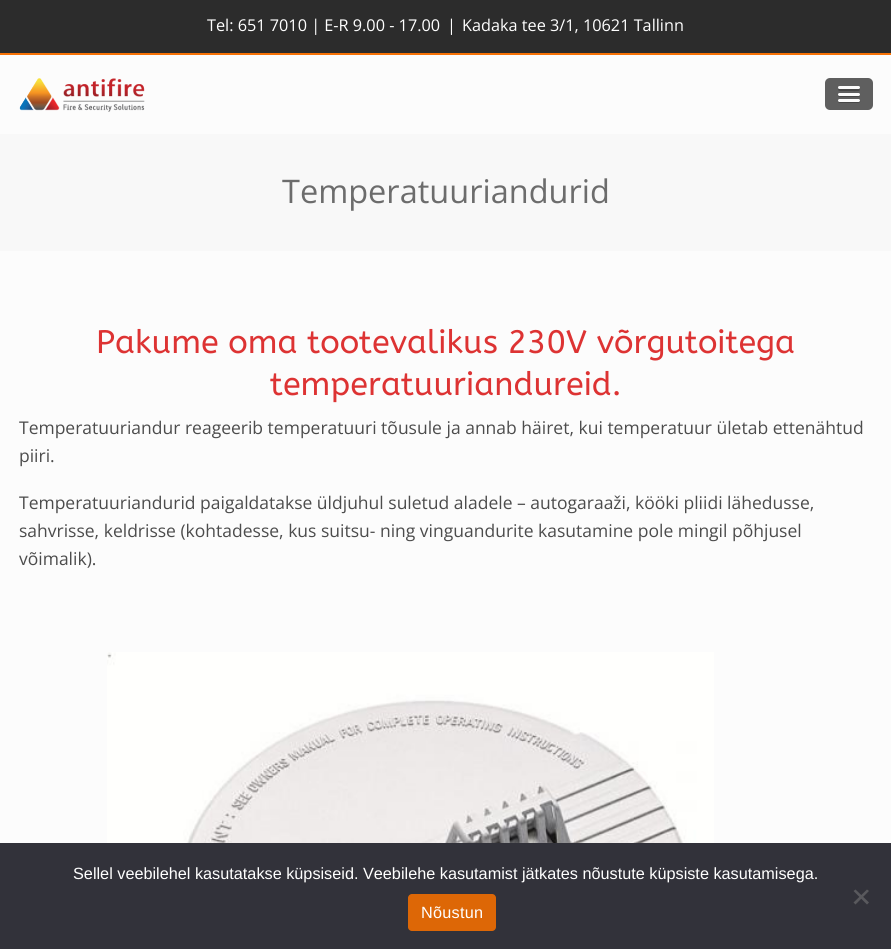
#include <cairo.h>
#include <math.h>
#include <stddef.h>


static void spaced_text(cairo_t *cr, double x, double y, const char *s, double letter, double word) {
    cairo_move_to(cr, x, y);
    while (*s) {
        char ch[5] = {0};
        int n = 0;
        do ch[n++] = *s++; while ((*s & 0xC0) == 0x80);
        cairo_show_text(cr, ch);
        cairo_rel_move_to(cr, letter + word * (*ch == ' '), 0);
    }
}

static void round_rect(cairo_t *cr, double x, double y, double w, double h, double r) {
    cairo_new_sub_path(cr);
    cairo_arc(cr, x + w - r, y + h - r, r, 0, M_PI / 2);
    cairo_arc(cr, x + r, y + h - r, r, M_PI / 2, M_PI);
    cairo_arc(cr, x + r, y + r, r, M_PI, 1.5 * M_PI);
    cairo_arc(cr, x + w - r, y + r, r, 1.5 * M_PI, 2 * M_PI);
    cairo_close_path(cr);
}

static void picture(cairo_t *cr, const char *path, double x, double y, double w, double h) {
    cairo_surface_t *image = cairo_image_surface_create_from_png(path);
    cairo_save(cr);
    cairo_set_source_surface(cr, image, x, y);
    cairo_rectangle(cr, x, y, w, h);
    cairo_fill(cr);
    cairo_restore(cr);
    cairo_surface_destroy(image);
}

int main(void) {
    cairo_surface_t *surface = cairo_image_surface_create(CAIRO_FORMAT_RGB24, 891, 949);
    cairo_t *cr = cairo_create(surface);
    cairo_font_options_t *options = cairo_font_options_create();
    cairo_font_options_set_hint_metrics(options, CAIRO_HINT_METRICS_OFF);
    cairo_font_options_set_hint_style(options, CAIRO_HINT_STYLE_NONE);
    cairo_set_font_options(cr, options);
    cairo_set_miter_limit(cr, 4);
    cairo_set_source_rgb(cr, 0.988, 0.988, 0.988);
    cairo_paint(cr);
    cairo_set_source_rgb(cr, 0.173, 0.173, 0.173);
    cairo_rectangle(cr, 0, 0, 891, 53);
    cairo_fill(cr);
    cairo_set_source_rgb(cr, 0.965, 0.447, 0.027);
    cairo_rectangle(cr, 0, 53, 891, 2);
    cairo_fill(cr);
    cairo_select_font_face(cr, "Open Sans", CAIRO_FONT_SLANT_NORMAL, CAIRO_FONT_WEIGHT_NORMAL);
    cairo_set_font_size(cr, 16.25);
    cairo_set_source_rgb(cr, 1, 1, 1);
    cairo_move_to(cr, 207, 31);
    cairo_show_text(cr, "Tel: 651 7010 | E-R 9.00 - 17.00");
    cairo_move_to(cr, 447, 31);
    cairo_show_text(cr, "|");
    cairo_move_to(cr, 462, 31);
    cairo_show_text(cr, "Kadaka tee 3/1, 10621 Tallinn");
    picture(cr, "img1.png", 19, 78, 126, 34);
    cairo_set_source_rgb(cr, 0.373, 0.373, 0.373);
    round_rect(cr, 825, 78, 48, 32, 5);
    cairo_fill(cr);
    cairo_set_source_rgb(cr, 0.278, 0.278, 0.278);
    cairo_new_path(cr);
    cairo_move_to(cr, 838.5, 88.5);
    cairo_curve_to(cr, 836.5, 91.5, 842, 91, 842.5, 91);
    cairo_line_to(cr, 849, 91);
    cairo_curve_to(cr, 851, 91, 859, 91.5, 859.5, 90.5);
    cairo_curve_to(cr, 860, 89.5, 860, 89, 859.5, 88.5);
    cairo_curve_to(cr, 859, 89, 839.5, 89, 838.5, 88.5);
    cairo_close_path(cr);
    cairo_fill(cr);
    cairo_set_source_rgb(cr, 0.988, 0.988, 0.988);
    round_rect(cr, 838, 86, 22, 3, 1.5);
    cairo_fill(cr);
    cairo_set_source_rgb(cr, 0.278, 0.278, 0.278);
    cairo_new_path(cr);
    cairo_move_to(cr, 838, 95);
    cairo_curve_to(cr, 837, 97.5, 842, 97, 842.5, 97);
    cairo_line_to(cr, 855.5, 97);
    cairo_curve_to(cr, 855.5, 97, 862, 97.5, 859.5, 94.5);
    cairo_line_to(cr, 859, 95);
    cairo_close_path(cr);
    cairo_fill(cr);
    cairo_set_source_rgb(cr, 0.988, 0.988, 0.988);
    round_rect(cr, 838, 93, 22, 3, 1.5);
    cairo_fill(cr);
    cairo_set_source_rgb(cr, 0.278, 0.278, 0.278);
    cairo_new_path(cr);
    cairo_move_to(cr, 838, 101);
    cairo_curve_to(cr, 837.5, 103.5, 842, 103, 842.5, 103);
    cairo_line_to(cr, 855.5, 103);
    cairo_curve_to(cr, 856, 103, 861.5, 103.5, 860, 100.5);
    cairo_line_to(cr, 859, 101);
    cairo_close_path(cr);
    cairo_fill(cr);
    cairo_set_source_rgb(cr, 0.988, 0.988, 0.988);
    round_rect(cr, 838, 99, 22, 3, 1.5);
    cairo_fill(cr);
    cairo_set_source_rgb(cr, 0.969, 0.969, 0.969);
    cairo_rectangle(cr, 0, 134, 891, 117);
    cairo_fill(cr);
    cairo_set_font_size(cr, 32.5);
    cairo_set_source_rgb(cr, 0.424, 0.424, 0.424);
    cairo_move_to(cr, 282, 203);
    cairo_show_text(cr, "Temperatuuriandurid");
    cairo_select_font_face(cr, "ABeeZee", CAIRO_FONT_SLANT_NORMAL, CAIRO_FONT_WEIGHT_NORMAL);
    cairo_set_source_rgb(cr, 0.867, 0.2, 0.2);
    cairo_move_to(cr, 96, 353);
    cairo_show_text(cr, "Pakume oma tootevalikus 230V võrgutoitega");
    cairo_move_to(cr, 270, 395);
    cairo_show_text(cr, "temperatuuriandureid.");
    cairo_select_font_face(cr, "Open Sans", CAIRO_FONT_SLANT_NORMAL, CAIRO_FONT_WEIGHT_NORMAL);
    cairo_set_font_size(cr, 17.5);
    cairo_set_source_rgb(cr, 0.298, 0.298, 0.298);
    cairo_move_to(cr, 19, 434);
    cairo_show_text(cr, "Temperatuuriandur reageerib temperatuuri tõusule ja annab häiret, kui temperatuur ületab ettenähtud");
    cairo_move_to(cr, 19, 462);
    cairo_show_text(cr, "piiri.");
    cairo_move_to(cr, 19, 509);
    cairo_show_text(cr, "Temperatuuriandurid paigaldatakse üldjuhul suletud aladele – autogaraaži, kööki pliidi lähedusse,");
    cairo_move_to(cr, 19, 537);
    cairo_show_text(cr, "sahvrisse, keldrisse (kohtadesse, kus suitsu- ning vinguandurite kasutamine pole mingil põhjusel");
    cairo_move_to(cr, 19, 565);
    cairo_show_text(cr, "võimalik).");
    picture(cr, "img2.png", 107, 652, 607, 191);
    cairo_set_source_rgb(cr, 0.196, 0.196, 0.227);
    cairo_rectangle(cr, 0, 843, 891, 106);
    cairo_fill(cr);
    cairo_select_font_face(cr, "Liberation Sans", CAIRO_FONT_SLANT_NORMAL, CAIRO_FONT_WEIGHT_NORMAL);
    cairo_set_font_size(cr, 16.25);
    cairo_set_source_rgb(cr, 1, 1, 1);
    cairo_move_to(cr, 73, 879);
    cairo_show_text(cr, "Sellel veebilehel kasutatakse küpsiseid. Veebilehe kasutamist jätkates nõustute küpsiste kasutamisega.");
    cairo_set_source_rgb(cr, 0.349, 0.349, 0.365);
    cairo_new_path(cr);
    cairo_move_to(cr, 867, 889.5);
    cairo_line_to(cr, 869, 891);
    cairo_line_to(cr, 855.5, 904.5);
    cairo_line_to(cr, 853.5, 902.5);
    cairo_close_path(cr);
    cairo_fill(cr);
    cairo_new_path(cr);
    cairo_move_to(cr, 853.5, 891);
    cairo_line_to(cr, 855.5, 889.5);
    cairo_line_to(cr, 869, 902.5);
    cairo_line_to(cr, 867, 904.5);
    cairo_close_path(cr);
    cairo_fill(cr);
    cairo_set_source_rgb(cr, 0.867, 0.404, 0.024);
    round_rect(cr, 408, 894, 88, 37, 4);
    cairo_fill(cr);
    cairo_set_source_rgb(cr, 1, 1, 1);
    spaced_text(cr, 421, 918, "Nõustun", 0.25, 0);
    cairo_surface_write_to_png(surface, "page.png");
    cairo_font_options_destroy(options);
    cairo_destroy(cr);
    cairo_surface_destroy(surface);
    return 0;
}
